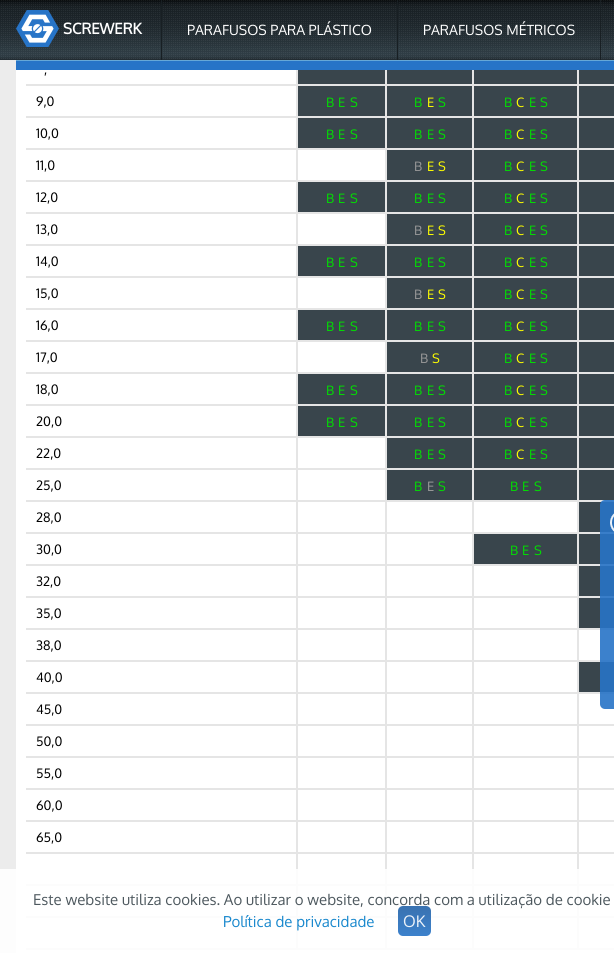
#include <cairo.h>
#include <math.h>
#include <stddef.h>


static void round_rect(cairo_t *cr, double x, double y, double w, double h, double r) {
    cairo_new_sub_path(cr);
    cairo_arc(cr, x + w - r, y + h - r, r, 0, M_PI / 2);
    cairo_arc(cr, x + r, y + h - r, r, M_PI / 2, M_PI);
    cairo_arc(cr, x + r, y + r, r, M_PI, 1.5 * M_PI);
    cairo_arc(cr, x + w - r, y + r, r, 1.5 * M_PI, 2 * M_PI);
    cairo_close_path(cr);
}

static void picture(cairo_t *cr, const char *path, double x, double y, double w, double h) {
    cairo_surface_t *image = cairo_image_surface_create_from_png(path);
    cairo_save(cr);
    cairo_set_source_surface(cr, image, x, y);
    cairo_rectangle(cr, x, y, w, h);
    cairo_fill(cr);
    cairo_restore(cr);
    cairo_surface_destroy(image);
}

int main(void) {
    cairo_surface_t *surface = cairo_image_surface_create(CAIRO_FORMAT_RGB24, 614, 953);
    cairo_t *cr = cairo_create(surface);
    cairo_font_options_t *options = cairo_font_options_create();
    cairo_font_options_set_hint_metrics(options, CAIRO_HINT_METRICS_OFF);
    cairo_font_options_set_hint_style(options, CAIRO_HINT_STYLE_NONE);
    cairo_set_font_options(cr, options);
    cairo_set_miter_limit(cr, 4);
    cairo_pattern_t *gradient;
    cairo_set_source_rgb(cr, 0.922, 0.922, 0.922);
    cairo_paint(cr);
    picture(cr, "img1.png", 0, 0, 614, 60);
    cairo_set_source_rgb(cr, 0.153, 0.455, 0.78);
    cairo_rectangle(cr, 16, 61, 598, 9);
    cairo_fill(cr);
    cairo_set_source_rgb(cr, 0.4, 0.659, 0.843);
    cairo_rectangle(cr, 16, 60, 598, 1);
    cairo_fill(cr);
    cairo_set_source_rgb(cr, 0.094, 0.122, 0.137);
    cairo_rectangle(cr, 161, 0, 1, 60);
    cairo_fill(cr);
    picture(cr, "img2.png", 16, 10, 43, 37);
    cairo_select_font_face(cr, "Oxygen", CAIRO_FONT_SLANT_NORMAL, CAIRO_FONT_WEIGHT_BOLD);
    cairo_set_font_size(cr, 15);
    cairo_set_source_rgb(cr, 1, 1, 1);
    cairo_move_to(cr, 63, 34);
    cairo_show_text(cr, "SCREWERK");
    cairo_set_source_rgb(cr, 0.094, 0.122, 0.137);
    cairo_rectangle(cr, 397, 0, 1, 60);
    cairo_fill(cr);
    cairo_select_font_face(cr, "Oxygen", CAIRO_FONT_SLANT_NORMAL, CAIRO_FONT_WEIGHT_NORMAL);
    cairo_set_font_size(cr, 14);
    cairo_set_source_rgb(cr, 1, 1, 1);
    cairo_move_to(cr, 187, 35);
    cairo_show_text(cr, "PARAFUSOS PARA PLÁSTICO");
    cairo_set_source_rgb(cr, 0.094, 0.122, 0.137);
    cairo_rectangle(cr, 600, 0, 1, 60);
    cairo_fill(cr);
    cairo_set_source_rgb(cr, 1, 1, 1);
    cairo_move_to(cr, 423, 35);
    cairo_show_text(cr, "PARAFUSOS MÉTRICOS");
    cairo_rectangle(cr, 16, 70, 598, 883);
    cairo_fill(cr);
    cairo_set_font_size(cr, 13);
    cairo_set_source_rgb(cr, 0, 0, 0);
    cairo_move_to(cr, 44, 74);
    cairo_show_text(cr, ",");
    cairo_set_source_rgb(cr, 0.224, 0.271, 0.298);
    cairo_rectangle(cr, 298, 70, 87, 14);
    cairo_fill(cr);
    cairo_set_source_rgb(cr, 0.898, 0.898, 0.898);
    cairo_rectangle(cr, 577, 84, 37, 2);
    cairo_fill(cr);
    cairo_rectangle(cr, 577, 116, 37, 2);
    cairo_fill(cr);
    cairo_rectangle(cr, 577, 148, 37, 2);
    cairo_fill(cr);
    cairo_rectangle(cr, 577, 180, 37, 2);
    cairo_fill(cr);
    cairo_rectangle(cr, 577, 212, 37, 2);
    cairo_fill(cr);
    cairo_rectangle(cr, 577, 244, 37, 2);
    cairo_fill(cr);
    cairo_rectangle(cr, 577, 276, 37, 2);
    cairo_fill(cr);
    cairo_rectangle(cr, 577, 308, 37, 2);
    cairo_fill(cr);
    cairo_rectangle(cr, 577, 340, 37, 2);
    cairo_fill(cr);
    cairo_rectangle(cr, 577, 372, 37, 2);
    cairo_fill(cr);
    cairo_rectangle(cr, 577, 404, 37, 2);
    cairo_fill(cr);
    cairo_rectangle(cr, 577, 436, 37, 2);
    cairo_fill(cr);
    cairo_rectangle(cr, 577, 468, 37, 2);
    cairo_fill(cr);
    cairo_rectangle(cr, 577, 500, 37, 2);
    cairo_fill(cr);
    cairo_rectangle(cr, 577, 532, 37, 2);
    cairo_fill(cr);
    cairo_rectangle(cr, 577, 564, 37, 2);
    cairo_fill(cr);
    cairo_rectangle(cr, 577, 596, 37, 2);
    cairo_fill(cr);
    cairo_rectangle(cr, 577, 628, 37, 2);
    cairo_fill(cr);
    cairo_rectangle(cr, 577, 660, 37, 2);
    cairo_fill(cr);
    cairo_rectangle(cr, 577, 692, 37, 2);
    cairo_fill(cr);
    cairo_rectangle(cr, 577, 724, 37, 2);
    cairo_fill(cr);
    cairo_rectangle(cr, 577, 756, 37, 2);
    cairo_fill(cr);
    cairo_rectangle(cr, 577, 788, 37, 2);
    cairo_fill(cr);
    cairo_rectangle(cr, 577, 820, 37, 2);
    cairo_fill(cr);
    cairo_rectangle(cr, 577, 852, 37, 2);
    cairo_fill(cr);
    cairo_rectangle(cr, 577, 884, 37, 2);
    cairo_fill(cr);
    cairo_rectangle(cr, 577, 916, 37, 2);
    cairo_fill(cr);
    cairo_rectangle(cr, 577, 948, 37, 2);
    cairo_fill(cr);
    cairo_rectangle(cr, 577, 916, 2, 34);
    cairo_fill(cr);
    cairo_rectangle(cr, 472, 916, 107, 2);
    cairo_fill(cr);
    cairo_rectangle(cr, 577, 884, 2, 34);
    cairo_fill(cr);
    cairo_rectangle(cr, 472, 884, 107, 2);
    cairo_fill(cr);
    cairo_rectangle(cr, 577, 852, 2, 34);
    cairo_fill(cr);
    cairo_rectangle(cr, 472, 852, 107, 2);
    cairo_fill(cr);
    cairo_rectangle(cr, 577, 820, 2, 34);
    cairo_fill(cr);
    cairo_rectangle(cr, 472, 820, 107, 2);
    cairo_fill(cr);
    cairo_rectangle(cr, 577, 788, 2, 34);
    cairo_fill(cr);
    cairo_rectangle(cr, 472, 788, 107, 2);
    cairo_fill(cr);
    cairo_rectangle(cr, 577, 756, 2, 34);
    cairo_fill(cr);
    cairo_rectangle(cr, 472, 756, 107, 2);
    cairo_fill(cr);
    cairo_rectangle(cr, 577, 724, 2, 34);
    cairo_fill(cr);
    cairo_rectangle(cr, 472, 724, 107, 2);
    cairo_fill(cr);
    cairo_rectangle(cr, 577, 692, 2, 34);
    cairo_fill(cr);
    cairo_rectangle(cr, 472, 692, 107, 2);
    cairo_fill(cr);
    cairo_rectangle(cr, 577, 660, 2, 34);
    cairo_fill(cr);
    cairo_rectangle(cr, 472, 660, 107, 2);
    cairo_fill(cr);
    cairo_rectangle(cr, 577, 628, 2, 34);
    cairo_fill(cr);
    cairo_rectangle(cr, 472, 628, 107, 2);
    cairo_fill(cr);
    cairo_rectangle(cr, 577, 596, 2, 34);
    cairo_fill(cr);
    cairo_rectangle(cr, 472, 596, 107, 2);
    cairo_fill(cr);
    cairo_rectangle(cr, 577, 564, 2, 34);
    cairo_fill(cr);
    cairo_rectangle(cr, 472, 564, 107, 2);
    cairo_fill(cr);
    cairo_rectangle(cr, 577, 532, 2, 34);
    cairo_fill(cr);
    cairo_rectangle(cr, 472, 532, 107, 2);
    cairo_fill(cr);
    cairo_rectangle(cr, 577, 500, 2, 34);
    cairo_fill(cr);
    cairo_rectangle(cr, 472, 500, 107, 2);
    cairo_fill(cr);
    cairo_rectangle(cr, 577, 468, 2, 34);
    cairo_fill(cr);
    cairo_rectangle(cr, 472, 468, 107, 2);
    cairo_fill(cr);
    cairo_rectangle(cr, 577, 436, 2, 34);
    cairo_fill(cr);
    cairo_rectangle(cr, 472, 436, 107, 2);
    cairo_fill(cr);
    cairo_rectangle(cr, 577, 404, 2, 34);
    cairo_fill(cr);
    cairo_rectangle(cr, 472, 404, 107, 2);
    cairo_fill(cr);
    cairo_rectangle(cr, 577, 372, 2, 34);
    cairo_fill(cr);
    cairo_rectangle(cr, 472, 372, 107, 2);
    cairo_fill(cr);
    cairo_rectangle(cr, 577, 340, 2, 34);
    cairo_fill(cr);
    cairo_rectangle(cr, 472, 340, 107, 2);
    cairo_fill(cr);
    cairo_rectangle(cr, 577, 308, 2, 34);
    cairo_fill(cr);
    cairo_rectangle(cr, 472, 308, 107, 2);
    cairo_fill(cr);
    cairo_rectangle(cr, 577, 276, 2, 34);
    cairo_fill(cr);
    cairo_rectangle(cr, 472, 276, 107, 2);
    cairo_fill(cr);
    cairo_rectangle(cr, 577, 244, 2, 34);
    cairo_fill(cr);
    cairo_rectangle(cr, 472, 244, 107, 2);
    cairo_fill(cr);
    cairo_rectangle(cr, 577, 212, 2, 34);
    cairo_fill(cr);
    cairo_rectangle(cr, 472, 212, 107, 2);
    cairo_fill(cr);
    cairo_rectangle(cr, 577, 180, 2, 34);
    cairo_fill(cr);
    cairo_rectangle(cr, 472, 180, 107, 2);
    cairo_fill(cr);
    cairo_rectangle(cr, 577, 148, 2, 34);
    cairo_fill(cr);
    cairo_rectangle(cr, 472, 148, 107, 2);
    cairo_fill(cr);
    cairo_rectangle(cr, 577, 116, 2, 34);
    cairo_fill(cr);
    cairo_rectangle(cr, 472, 116, 107, 2);
    cairo_fill(cr);
    cairo_rectangle(cr, 577, 84, 2, 34);
    cairo_fill(cr);
    cairo_rectangle(cr, 472, 84, 107, 2);
    cairo_fill(cr);
    cairo_rectangle(cr, 472, 948, 107, 2);
    cairo_fill(cr);
    cairo_rectangle(cr, 472, 916, 2, 34);
    cairo_fill(cr);
    cairo_rectangle(cr, 385, 916, 89, 2);
    cairo_fill(cr);
    cairo_rectangle(cr, 472, 884, 2, 34);
    cairo_fill(cr);
    cairo_rectangle(cr, 385, 884, 89, 2);
    cairo_fill(cr);
    cairo_rectangle(cr, 472, 852, 2, 34);
    cairo_fill(cr);
    cairo_rectangle(cr, 385, 852, 89, 2);
    cairo_fill(cr);
    cairo_rectangle(cr, 472, 820, 2, 34);
    cairo_fill(cr);
    cairo_rectangle(cr, 385, 820, 89, 2);
    cairo_fill(cr);
    cairo_rectangle(cr, 472, 788, 2, 34);
    cairo_fill(cr);
    cairo_rectangle(cr, 385, 788, 89, 2);
    cairo_fill(cr);
    cairo_rectangle(cr, 472, 756, 2, 34);
    cairo_fill(cr);
    cairo_rectangle(cr, 385, 756, 89, 2);
    cairo_fill(cr);
    cairo_rectangle(cr, 472, 724, 2, 34);
    cairo_fill(cr);
    cairo_rectangle(cr, 385, 724, 89, 2);
    cairo_fill(cr);
    cairo_rectangle(cr, 472, 692, 2, 34);
    cairo_fill(cr);
    cairo_rectangle(cr, 385, 692, 89, 2);
    cairo_fill(cr);
    cairo_rectangle(cr, 472, 660, 2, 34);
    cairo_fill(cr);
    cairo_rectangle(cr, 385, 660, 89, 2);
    cairo_fill(cr);
    cairo_rectangle(cr, 472, 628, 2, 34);
    cairo_fill(cr);
    cairo_rectangle(cr, 385, 628, 89, 2);
    cairo_fill(cr);
    cairo_rectangle(cr, 472, 596, 2, 34);
    cairo_fill(cr);
    cairo_rectangle(cr, 385, 596, 89, 2);
    cairo_fill(cr);
    cairo_rectangle(cr, 472, 564, 2, 34);
    cairo_fill(cr);
    cairo_rectangle(cr, 385, 564, 89, 2);
    cairo_fill(cr);
    cairo_rectangle(cr, 472, 532, 2, 34);
    cairo_fill(cr);
    cairo_rectangle(cr, 385, 532, 89, 2);
    cairo_fill(cr);
    cairo_rectangle(cr, 472, 500, 2, 34);
    cairo_fill(cr);
    cairo_rectangle(cr, 385, 500, 89, 2);
    cairo_fill(cr);
    cairo_rectangle(cr, 472, 468, 2, 34);
    cairo_fill(cr);
    cairo_rectangle(cr, 385, 468, 89, 2);
    cairo_fill(cr);
    cairo_rectangle(cr, 472, 436, 2, 34);
    cairo_fill(cr);
    cairo_rectangle(cr, 385, 436, 89, 2);
    cairo_fill(cr);
    cairo_rectangle(cr, 472, 404, 2, 34);
    cairo_fill(cr);
    cairo_rectangle(cr, 385, 404, 89, 2);
    cairo_fill(cr);
    cairo_rectangle(cr, 472, 372, 2, 34);
    cairo_fill(cr);
    cairo_rectangle(cr, 385, 372, 89, 2);
    cairo_fill(cr);
    cairo_rectangle(cr, 472, 340, 2, 34);
    cairo_fill(cr);
    cairo_rectangle(cr, 385, 340, 89, 2);
    cairo_fill(cr);
    cairo_rectangle(cr, 472, 308, 2, 34);
    cairo_fill(cr);
    cairo_rectangle(cr, 385, 308, 89, 2);
    cairo_fill(cr);
    cairo_rectangle(cr, 472, 276, 2, 34);
    cairo_fill(cr);
    cairo_rectangle(cr, 385, 276, 89, 2);
    cairo_fill(cr);
    cairo_rectangle(cr, 472, 244, 2, 34);
    cairo_fill(cr);
    cairo_rectangle(cr, 385, 244, 89, 2);
    cairo_fill(cr);
    cairo_rectangle(cr, 472, 212, 2, 34);
    cairo_fill(cr);
    cairo_rectangle(cr, 385, 212, 89, 2);
    cairo_fill(cr);
    cairo_rectangle(cr, 472, 180, 2, 34);
    cairo_fill(cr);
    cairo_rectangle(cr, 385, 180, 89, 2);
    cairo_fill(cr);
    cairo_rectangle(cr, 472, 148, 2, 34);
    cairo_fill(cr);
    cairo_rectangle(cr, 385, 148, 89, 2);
    cairo_fill(cr);
    cairo_rectangle(cr, 472, 116, 2, 34);
    cairo_fill(cr);
    cairo_rectangle(cr, 385, 116, 89, 2);
    cairo_fill(cr);
    cairo_rectangle(cr, 472, 84, 2, 34);
    cairo_fill(cr);
    cairo_rectangle(cr, 385, 84, 89, 2);
    cairo_fill(cr);
    cairo_rectangle(cr, 385, 948, 89, 2);
    cairo_fill(cr);
    cairo_rectangle(cr, 385, 916, 2, 34);
    cairo_fill(cr);
    cairo_rectangle(cr, 296, 916, 91, 2);
    cairo_fill(cr);
    cairo_rectangle(cr, 385, 884, 2, 34);
    cairo_fill(cr);
    cairo_rectangle(cr, 296, 884, 91, 2);
    cairo_fill(cr);
    cairo_rectangle(cr, 385, 852, 2, 34);
    cairo_fill(cr);
    cairo_rectangle(cr, 296, 852, 91, 2);
    cairo_fill(cr);
    cairo_rectangle(cr, 385, 820, 2, 34);
    cairo_fill(cr);
    cairo_rectangle(cr, 296, 820, 91, 2);
    cairo_fill(cr);
    cairo_rectangle(cr, 385, 788, 2, 34);
    cairo_fill(cr);
    cairo_rectangle(cr, 296, 788, 91, 2);
    cairo_fill(cr);
    cairo_rectangle(cr, 385, 756, 2, 34);
    cairo_fill(cr);
    cairo_rectangle(cr, 296, 756, 91, 2);
    cairo_fill(cr);
    cairo_rectangle(cr, 385, 724, 2, 34);
    cairo_fill(cr);
    cairo_rectangle(cr, 296, 724, 91, 2);
    cairo_fill(cr);
    cairo_rectangle(cr, 385, 692, 2, 34);
    cairo_fill(cr);
    cairo_rectangle(cr, 296, 692, 91, 2);
    cairo_fill(cr);
    cairo_rectangle(cr, 385, 660, 2, 34);
    cairo_fill(cr);
    cairo_rectangle(cr, 296, 660, 91, 2);
    cairo_fill(cr);
    cairo_rectangle(cr, 385, 628, 2, 34);
    cairo_fill(cr);
    cairo_rectangle(cr, 296, 628, 91, 2);
    cairo_fill(cr);
    cairo_rectangle(cr, 385, 596, 2, 34);
    cairo_fill(cr);
    cairo_rectangle(cr, 296, 596, 91, 2);
    cairo_fill(cr);
    cairo_rectangle(cr, 385, 564, 2, 34);
    cairo_fill(cr);
    cairo_rectangle(cr, 296, 564, 91, 2);
    cairo_fill(cr);
    cairo_rectangle(cr, 385, 532, 2, 34);
    cairo_fill(cr);
    cairo_rectangle(cr, 296, 532, 91, 2);
    cairo_fill(cr);
    cairo_rectangle(cr, 385, 500, 2, 34);
    cairo_fill(cr);
    cairo_rectangle(cr, 296, 500, 91, 2);
    cairo_fill(cr);
    cairo_rectangle(cr, 385, 468, 2, 34);
    cairo_fill(cr);
    cairo_rectangle(cr, 296, 468, 91, 2);
    cairo_fill(cr);
    cairo_rectangle(cr, 385, 436, 2, 34);
    cairo_fill(cr);
    cairo_rectangle(cr, 296, 436, 91, 2);
    cairo_fill(cr);
    cairo_rectangle(cr, 385, 404, 2, 34);
    cairo_fill(cr);
    cairo_rectangle(cr, 296, 404, 91, 2);
    cairo_fill(cr);
    cairo_rectangle(cr, 385, 372, 2, 34);
    cairo_fill(cr);
    cairo_rectangle(cr, 296, 372, 91, 2);
    cairo_fill(cr);
    cairo_rectangle(cr, 385, 340, 2, 34);
    cairo_fill(cr);
    cairo_rectangle(cr, 296, 340, 91, 2);
    cairo_fill(cr);
    cairo_rectangle(cr, 385, 308, 2, 34);
    cairo_fill(cr);
    cairo_rectangle(cr, 296, 308, 91, 2);
    cairo_fill(cr);
    cairo_rectangle(cr, 385, 276, 2, 34);
    cairo_fill(cr);
    cairo_rectangle(cr, 296, 276, 91, 2);
    cairo_fill(cr);
    cairo_rectangle(cr, 385, 244, 2, 34);
    cairo_fill(cr);
    cairo_rectangle(cr, 296, 244, 91, 2);
    cairo_fill(cr);
    cairo_rectangle(cr, 385, 212, 2, 34);
    cairo_fill(cr);
    cairo_rectangle(cr, 296, 212, 91, 2);
    cairo_fill(cr);
    cairo_rectangle(cr, 385, 180, 2, 34);
    cairo_fill(cr);
    cairo_rectangle(cr, 296, 180, 91, 2);
    cairo_fill(cr);
    cairo_rectangle(cr, 385, 148, 2, 34);
    cairo_fill(cr);
    cairo_rectangle(cr, 296, 148, 91, 2);
    cairo_fill(cr);
    cairo_rectangle(cr, 385, 116, 2, 34);
    cairo_fill(cr);
    cairo_rectangle(cr, 296, 116, 91, 2);
    cairo_fill(cr);
    cairo_rectangle(cr, 385, 84, 2, 34);
    cairo_fill(cr);
    cairo_rectangle(cr, 296, 84, 91, 2);
    cairo_fill(cr);
    cairo_rectangle(cr, 296, 948, 91, 2);
    cairo_fill(cr);
    cairo_rectangle(cr, 296, 916, 2, 34);
    cairo_fill(cr);
    cairo_rectangle(cr, 26, 916, 272, 2);
    cairo_fill(cr);
    cairo_rectangle(cr, 296, 884, 2, 34);
    cairo_fill(cr);
    cairo_rectangle(cr, 26, 884, 272, 2);
    cairo_fill(cr);
    cairo_rectangle(cr, 296, 852, 2, 34);
    cairo_fill(cr);
    cairo_rectangle(cr, 26, 852, 272, 2);
    cairo_fill(cr);
    cairo_rectangle(cr, 296, 820, 2, 34);
    cairo_fill(cr);
    cairo_rectangle(cr, 26, 820, 272, 2);
    cairo_fill(cr);
    cairo_rectangle(cr, 296, 788, 2, 34);
    cairo_fill(cr);
    cairo_rectangle(cr, 26, 788, 272, 2);
    cairo_fill(cr);
    cairo_rectangle(cr, 296, 756, 2, 34);
    cairo_fill(cr);
    cairo_rectangle(cr, 26, 756, 272, 2);
    cairo_fill(cr);
    cairo_rectangle(cr, 296, 724, 2, 34);
    cairo_fill(cr);
    cairo_rectangle(cr, 26, 724, 272, 2);
    cairo_fill(cr);
    cairo_rectangle(cr, 296, 692, 2, 34);
    cairo_fill(cr);
    cairo_rectangle(cr, 26, 692, 272, 2);
    cairo_fill(cr);
    cairo_rectangle(cr, 296, 660, 2, 34);
    cairo_fill(cr);
    cairo_rectangle(cr, 26, 660, 272, 2);
    cairo_fill(cr);
    cairo_rectangle(cr, 296, 628, 2, 34);
    cairo_fill(cr);
    cairo_rectangle(cr, 26, 628, 272, 2);
    cairo_fill(cr);
    cairo_rectangle(cr, 296, 596, 2, 34);
    cairo_fill(cr);
    cairo_rectangle(cr, 26, 596, 272, 2);
    cairo_fill(cr);
    cairo_rectangle(cr, 296, 564, 2, 34);
    cairo_fill(cr);
    cairo_rectangle(cr, 26, 564, 272, 2);
    cairo_fill(cr);
    cairo_rectangle(cr, 296, 532, 2, 34);
    cairo_fill(cr);
    cairo_rectangle(cr, 26, 532, 272, 2);
    cairo_fill(cr);
    cairo_rectangle(cr, 296, 500, 2, 34);
    cairo_fill(cr);
    cairo_rectangle(cr, 26, 500, 272, 2);
    cairo_fill(cr);
    cairo_rectangle(cr, 296, 468, 2, 34);
    cairo_fill(cr);
    cairo_rectangle(cr, 26, 468, 272, 2);
    cairo_fill(cr);
    cairo_rectangle(cr, 296, 436, 2, 34);
    cairo_fill(cr);
    cairo_rectangle(cr, 26, 436, 272, 2);
    cairo_fill(cr);
    cairo_rectangle(cr, 296, 404, 2, 34);
    cairo_fill(cr);
    cairo_rectangle(cr, 26, 404, 272, 2);
    cairo_fill(cr);
    cairo_rectangle(cr, 296, 372, 2, 34);
    cairo_fill(cr);
    cairo_rectangle(cr, 26, 372, 272, 2);
    cairo_fill(cr);
    cairo_rectangle(cr, 296, 340, 2, 34);
    cairo_fill(cr);
    cairo_rectangle(cr, 26, 340, 272, 2);
    cairo_fill(cr);
    cairo_rectangle(cr, 296, 308, 2, 34);
    cairo_fill(cr);
    cairo_rectangle(cr, 26, 308, 272, 2);
    cairo_fill(cr);
    cairo_rectangle(cr, 296, 276, 2, 34);
    cairo_fill(cr);
    cairo_rectangle(cr, 26, 276, 272, 2);
    cairo_fill(cr);
    cairo_rectangle(cr, 296, 244, 2, 34);
    cairo_fill(cr);
    cairo_rectangle(cr, 26, 244, 272, 2);
    cairo_fill(cr);
    cairo_rectangle(cr, 296, 212, 2, 34);
    cairo_fill(cr);
    cairo_rectangle(cr, 26, 212, 272, 2);
    cairo_fill(cr);
    cairo_rectangle(cr, 296, 180, 2, 34);
    cairo_fill(cr);
    cairo_rectangle(cr, 26, 180, 272, 2);
    cairo_fill(cr);
    cairo_rectangle(cr, 296, 148, 2, 34);
    cairo_fill(cr);
    cairo_rectangle(cr, 26, 148, 272, 2);
    cairo_fill(cr);
    cairo_rectangle(cr, 296, 116, 2, 34);
    cairo_fill(cr);
    cairo_rectangle(cr, 26, 116, 272, 2);
    cairo_fill(cr);
    cairo_rectangle(cr, 296, 84, 2, 34);
    cairo_fill(cr);
    cairo_rectangle(cr, 26, 84, 272, 2);
    cairo_fill(cr);
    cairo_rectangle(cr, 296, 70, 2, 16);
    cairo_fill(cr);
    cairo_set_source_rgb(cr, 0.224, 0.271, 0.298);
    cairo_rectangle(cr, 387, 70, 85, 14);
    cairo_fill(cr);
    cairo_set_source_rgb(cr, 0.898, 0.898, 0.898);
    cairo_rectangle(cr, 385, 70, 2, 16);
    cairo_fill(cr);
    cairo_set_source_rgb(cr, 0.224, 0.271, 0.298);
    cairo_rectangle(cr, 474, 70, 103, 14);
    cairo_fill(cr);
    cairo_set_source_rgb(cr, 0.898, 0.898, 0.898);
    cairo_rectangle(cr, 472, 70, 2, 16);
    cairo_fill(cr);
    cairo_set_source_rgb(cr, 0.224, 0.271, 0.298);
    cairo_rectangle(cr, 579, 70, 35, 14);
    cairo_fill(cr);
    cairo_set_source_rgb(cr, 0.898, 0.898, 0.898);
    cairo_rectangle(cr, 577, 70, 2, 16);
    cairo_fill(cr);
    cairo_set_source_rgb(cr, 0, 0, 0);
    cairo_move_to(cr, 36, 106);
    cairo_show_text(cr, "9,0");
    cairo_set_source_rgb(cr, 0.224, 0.271, 0.298);
    cairo_rectangle(cr, 298, 86, 87, 30);
    cairo_fill(cr);
    cairo_set_source_rgb(cr, 0.004, 0.875, 0.004);
    cairo_move_to(cr, 326, 107);
    cairo_show_text(cr, "B");
    cairo_move_to(cr, 338, 107);
    cairo_show_text(cr, "E");
    cairo_move_to(cr, 350, 107);
    cairo_show_text(cr, "S");
    cairo_set_source_rgb(cr, 0.224, 0.271, 0.298);
    cairo_rectangle(cr, 387, 86, 85, 30);
    cairo_fill(cr);
    cairo_set_source_rgb(cr, 0.004, 0.875, 0.004);
    cairo_move_to(cr, 414, 107);
    cairo_show_text(cr, "B");
    cairo_set_source_rgb(cr, 1, 1, 0);
    cairo_move_to(cr, 427, 107);
    cairo_show_text(cr, "E");
    cairo_set_source_rgb(cr, 0.004, 0.875, 0.004);
    cairo_move_to(cr, 438, 107);
    cairo_show_text(cr, "S");
    cairo_set_source_rgb(cr, 0.224, 0.271, 0.298);
    cairo_rectangle(cr, 474, 86, 103, 30);
    cairo_fill(cr);
    cairo_set_source_rgb(cr, 0.004, 0.875, 0.004);
    cairo_move_to(cr, 504, 107);
    cairo_show_text(cr, "B");
    cairo_set_source_rgb(cr, 1, 1, 0);
    cairo_move_to(cr, 516, 107);
    cairo_show_text(cr, "C");
    cairo_set_source_rgb(cr, 0.004, 0.875, 0.004);
    cairo_move_to(cr, 529, 107);
    cairo_show_text(cr, "E");
    cairo_move_to(cr, 540, 107);
    cairo_show_text(cr, "S");
    cairo_set_source_rgb(cr, 0.224, 0.271, 0.298);
    cairo_rectangle(cr, 579, 86, 35, 30);
    cairo_fill(cr);
    cairo_set_source_rgb(cr, 0, 0, 0);
    cairo_move_to(cr, 36, 138);
    cairo_show_text(cr, "10,0");
    cairo_set_source_rgb(cr, 0.224, 0.271, 0.298);
    cairo_rectangle(cr, 298, 118, 87, 30);
    cairo_fill(cr);
    cairo_set_source_rgb(cr, 0.004, 0.875, 0.004);
    cairo_move_to(cr, 326, 139);
    cairo_show_text(cr, "B");
    cairo_move_to(cr, 338, 139);
    cairo_show_text(cr, "E");
    cairo_move_to(cr, 350, 139);
    cairo_show_text(cr, "S");
    cairo_set_source_rgb(cr, 0.224, 0.271, 0.298);
    cairo_rectangle(cr, 387, 118, 85, 30);
    cairo_fill(cr);
    cairo_set_source_rgb(cr, 0.004, 0.875, 0.004);
    cairo_move_to(cr, 414, 139);
    cairo_show_text(cr, "B");
    cairo_move_to(cr, 427, 139);
    cairo_show_text(cr, "E");
    cairo_move_to(cr, 438, 139);
    cairo_show_text(cr, "S");
    cairo_set_source_rgb(cr, 0.224, 0.271, 0.298);
    cairo_rectangle(cr, 474, 118, 103, 30);
    cairo_fill(cr);
    cairo_set_source_rgb(cr, 0.004, 0.875, 0.004);
    cairo_move_to(cr, 504, 139);
    cairo_show_text(cr, "B");
    cairo_set_source_rgb(cr, 1, 1, 0);
    cairo_move_to(cr, 516, 139);
    cairo_show_text(cr, "C");
    cairo_set_source_rgb(cr, 0.004, 0.875, 0.004);
    cairo_move_to(cr, 529, 139);
    cairo_show_text(cr, "E");
    cairo_move_to(cr, 540, 139);
    cairo_show_text(cr, "S");
    cairo_set_source_rgb(cr, 0.224, 0.271, 0.298);
    cairo_rectangle(cr, 579, 118, 35, 30);
    cairo_fill(cr);
    cairo_set_source_rgb(cr, 0, 0, 0);
    cairo_move_to(cr, 36, 170);
    cairo_show_text(cr, "11,0");
    cairo_set_source_rgb(cr, 0.224, 0.271, 0.298);
    cairo_rectangle(cr, 387, 150, 85, 30);
    cairo_fill(cr);
    cairo_set_source_rgb(cr, 0.6, 0.6, 0.6);
    cairo_move_to(cr, 414, 171);
    cairo_show_text(cr, "B");
    cairo_set_source_rgb(cr, 1, 1, 0);
    cairo_move_to(cr, 427, 171);
    cairo_show_text(cr, "E");
    cairo_move_to(cr, 438, 171);
    cairo_show_text(cr, "S");
    cairo_set_source_rgb(cr, 0.224, 0.271, 0.298);
    cairo_rectangle(cr, 474, 150, 103, 30);
    cairo_fill(cr);
    cairo_set_source_rgb(cr, 0.004, 0.875, 0.004);
    cairo_move_to(cr, 504, 171);
    cairo_show_text(cr, "B");
    cairo_set_source_rgb(cr, 1, 1, 0);
    cairo_move_to(cr, 516, 171);
    cairo_show_text(cr, "C");
    cairo_set_source_rgb(cr, 0.004, 0.875, 0.004);
    cairo_move_to(cr, 529, 171);
    cairo_show_text(cr, "E");
    cairo_move_to(cr, 540, 171);
    cairo_show_text(cr, "S");
    cairo_set_source_rgb(cr, 0.224, 0.271, 0.298);
    cairo_rectangle(cr, 579, 150, 35, 30);
    cairo_fill(cr);
    cairo_set_source_rgb(cr, 0, 0, 0);
    cairo_move_to(cr, 36, 202);
    cairo_show_text(cr, "12,0");
    cairo_set_source_rgb(cr, 0.224, 0.271, 0.298);
    cairo_rectangle(cr, 298, 182, 87, 30);
    cairo_fill(cr);
    cairo_set_source_rgb(cr, 0.004, 0.875, 0.004);
    cairo_move_to(cr, 326, 203);
    cairo_show_text(cr, "B");
    cairo_move_to(cr, 338, 203);
    cairo_show_text(cr, "E");
    cairo_move_to(cr, 350, 203);
    cairo_show_text(cr, "S");
    cairo_set_source_rgb(cr, 0.224, 0.271, 0.298);
    cairo_rectangle(cr, 387, 182, 85, 30);
    cairo_fill(cr);
    cairo_set_source_rgb(cr, 0.004, 0.875, 0.004);
    cairo_move_to(cr, 414, 203);
    cairo_show_text(cr, "B");
    cairo_move_to(cr, 427, 203);
    cairo_show_text(cr, "E");
    cairo_move_to(cr, 438, 203);
    cairo_show_text(cr, "S");
    cairo_set_source_rgb(cr, 0.224, 0.271, 0.298);
    cairo_rectangle(cr, 474, 182, 103, 30);
    cairo_fill(cr);
    cairo_set_source_rgb(cr, 0.004, 0.875, 0.004);
    cairo_move_to(cr, 504, 203);
    cairo_show_text(cr, "B");
    cairo_set_source_rgb(cr, 1, 1, 0);
    cairo_move_to(cr, 516, 203);
    cairo_show_text(cr, "C");
    cairo_set_source_rgb(cr, 0.004, 0.875, 0.004);
    cairo_move_to(cr, 529, 203);
    cairo_show_text(cr, "E");
    cairo_move_to(cr, 540, 203);
    cairo_show_text(cr, "S");
    cairo_set_source_rgb(cr, 0.224, 0.271, 0.298);
    cairo_rectangle(cr, 579, 182, 35, 30);
    cairo_fill(cr);
    cairo_set_source_rgb(cr, 0, 0, 0);
    cairo_move_to(cr, 36, 234);
    cairo_show_text(cr, "13,0");
    cairo_set_source_rgb(cr, 0.224, 0.271, 0.298);
    cairo_rectangle(cr, 387, 214, 85, 30);
    cairo_fill(cr);
    cairo_set_source_rgb(cr, 0.6, 0.6, 0.6);
    cairo_move_to(cr, 414, 235);
    cairo_show_text(cr, "B");
    cairo_set_source_rgb(cr, 1, 1, 0);
    cairo_move_to(cr, 427, 235);
    cairo_show_text(cr, "E");
    cairo_move_to(cr, 438, 235);
    cairo_show_text(cr, "S");
    cairo_set_source_rgb(cr, 0.224, 0.271, 0.298);
    cairo_rectangle(cr, 474, 214, 103, 30);
    cairo_fill(cr);
    cairo_set_source_rgb(cr, 0.004, 0.875, 0.004);
    cairo_move_to(cr, 504, 235);
    cairo_show_text(cr, "B");
    cairo_set_source_rgb(cr, 1, 1, 0);
    cairo_move_to(cr, 516, 235);
    cairo_show_text(cr, "C");
    cairo_set_source_rgb(cr, 0.004, 0.875, 0.004);
    cairo_move_to(cr, 529, 235);
    cairo_show_text(cr, "E");
    cairo_move_to(cr, 540, 235);
    cairo_show_text(cr, "S");
    cairo_set_source_rgb(cr, 0.224, 0.271, 0.298);
    cairo_rectangle(cr, 579, 214, 35, 30);
    cairo_fill(cr);
    cairo_set_source_rgb(cr, 0, 0, 0);
    cairo_move_to(cr, 36, 266);
    cairo_show_text(cr, "14,0");
    cairo_set_source_rgb(cr, 0.224, 0.271, 0.298);
    cairo_rectangle(cr, 298, 246, 87, 30);
    cairo_fill(cr);
    cairo_set_source_rgb(cr, 0.004, 0.875, 0.004);
    cairo_move_to(cr, 326, 267);
    cairo_show_text(cr, "B");
    cairo_move_to(cr, 338, 267);
    cairo_show_text(cr, "E");
    cairo_move_to(cr, 350, 267);
    cairo_show_text(cr, "S");
    cairo_set_source_rgb(cr, 0.224, 0.271, 0.298);
    cairo_rectangle(cr, 387, 246, 85, 30);
    cairo_fill(cr);
    cairo_set_source_rgb(cr, 0.004, 0.875, 0.004);
    cairo_move_to(cr, 414, 267);
    cairo_show_text(cr, "B");
    cairo_move_to(cr, 427, 267);
    cairo_show_text(cr, "E");
    cairo_move_to(cr, 438, 267);
    cairo_show_text(cr, "S");
    cairo_set_source_rgb(cr, 0.224, 0.271, 0.298);
    cairo_rectangle(cr, 474, 246, 103, 30);
    cairo_fill(cr);
    cairo_set_source_rgb(cr, 0.004, 0.875, 0.004);
    cairo_move_to(cr, 504, 267);
    cairo_show_text(cr, "B");
    cairo_set_source_rgb(cr, 1, 1, 0);
    cairo_move_to(cr, 516, 267);
    cairo_show_text(cr, "C");
    cairo_set_source_rgb(cr, 0.004, 0.875, 0.004);
    cairo_move_to(cr, 529, 267);
    cairo_show_text(cr, "E");
    cairo_move_to(cr, 540, 267);
    cairo_show_text(cr, "S");
    cairo_set_source_rgb(cr, 0.224, 0.271, 0.298);
    cairo_rectangle(cr, 579, 246, 35, 30);
    cairo_fill(cr);
    cairo_set_source_rgb(cr, 0, 0, 0);
    cairo_move_to(cr, 36, 298);
    cairo_show_text(cr, "15,0");
    cairo_set_source_rgb(cr, 0.224, 0.271, 0.298);
    cairo_rectangle(cr, 387, 278, 85, 30);
    cairo_fill(cr);
    cairo_set_source_rgb(cr, 0.6, 0.6, 0.6);
    cairo_move_to(cr, 414, 299);
    cairo_show_text(cr, "B");
    cairo_set_source_rgb(cr, 1, 1, 0);
    cairo_move_to(cr, 427, 299);
    cairo_show_text(cr, "E");
    cairo_move_to(cr, 438, 299);
    cairo_show_text(cr, "S");
    cairo_set_source_rgb(cr, 0.224, 0.271, 0.298);
    cairo_rectangle(cr, 474, 278, 103, 30);
    cairo_fill(cr);
    cairo_set_source_rgb(cr, 0.004, 0.875, 0.004);
    cairo_move_to(cr, 504, 299);
    cairo_show_text(cr, "B");
    cairo_set_source_rgb(cr, 1, 1, 0);
    cairo_move_to(cr, 516, 299);
    cairo_show_text(cr, "C");
    cairo_set_source_rgb(cr, 0.004, 0.875, 0.004);
    cairo_move_to(cr, 529, 299);
    cairo_show_text(cr, "E");
    cairo_move_to(cr, 540, 299);
    cairo_show_text(cr, "S");
    cairo_set_source_rgb(cr, 0.224, 0.271, 0.298);
    cairo_rectangle(cr, 579, 278, 35, 30);
    cairo_fill(cr);
    cairo_set_source_rgb(cr, 0, 0, 0);
    cairo_move_to(cr, 36, 330);
    cairo_show_text(cr, "16,0");
    cairo_set_source_rgb(cr, 0.224, 0.271, 0.298);
    cairo_rectangle(cr, 298, 310, 87, 30);
    cairo_fill(cr);
    cairo_set_source_rgb(cr, 0.004, 0.875, 0.004);
    cairo_move_to(cr, 326, 331);
    cairo_show_text(cr, "B");
    cairo_move_to(cr, 338, 331);
    cairo_show_text(cr, "E");
    cairo_move_to(cr, 350, 331);
    cairo_show_text(cr, "S");
    cairo_set_source_rgb(cr, 0.224, 0.271, 0.298);
    cairo_rectangle(cr, 387, 310, 85, 30);
    cairo_fill(cr);
    cairo_set_source_rgb(cr, 0.004, 0.875, 0.004);
    cairo_move_to(cr, 414, 331);
    cairo_show_text(cr, "B");
    cairo_move_to(cr, 427, 331);
    cairo_show_text(cr, "E");
    cairo_move_to(cr, 438, 331);
    cairo_show_text(cr, "S");
    cairo_set_source_rgb(cr, 0.224, 0.271, 0.298);
    cairo_rectangle(cr, 474, 310, 103, 30);
    cairo_fill(cr);
    cairo_set_source_rgb(cr, 0.004, 0.875, 0.004);
    cairo_move_to(cr, 504, 331);
    cairo_show_text(cr, "B");
    cairo_set_source_rgb(cr, 1, 1, 0);
    cairo_move_to(cr, 516, 331);
    cairo_show_text(cr, "C");
    cairo_set_source_rgb(cr, 0.004, 0.875, 0.004);
    cairo_move_to(cr, 529, 331);
    cairo_show_text(cr, "E");
    cairo_move_to(cr, 540, 331);
    cairo_show_text(cr, "S");
    cairo_set_source_rgb(cr, 0.224, 0.271, 0.298);
    cairo_rectangle(cr, 579, 310, 35, 30);
    cairo_fill(cr);
    cairo_set_source_rgb(cr, 0, 0, 0);
    cairo_move_to(cr, 36, 362);
    cairo_show_text(cr, "17,0");
    cairo_set_source_rgb(cr, 0.224, 0.271, 0.298);
    cairo_rectangle(cr, 387, 342, 85, 30);
    cairo_fill(cr);
    cairo_set_source_rgb(cr, 0.6, 0.6, 0.6);
    cairo_move_to(cr, 420, 363);
    cairo_show_text(cr, "B");
    cairo_set_source_rgb(cr, 1, 1, 0);
    cairo_move_to(cr, 432, 363);
    cairo_show_text(cr, "S");
    cairo_set_source_rgb(cr, 0.224, 0.271, 0.298);
    cairo_rectangle(cr, 474, 342, 103, 30);
    cairo_fill(cr);
    cairo_set_source_rgb(cr, 0.004, 0.875, 0.004);
    cairo_move_to(cr, 504, 363);
    cairo_show_text(cr, "B");
    cairo_set_source_rgb(cr, 1, 1, 0);
    cairo_move_to(cr, 516, 363);
    cairo_show_text(cr, "C");
    cairo_set_source_rgb(cr, 0.004, 0.875, 0.004);
    cairo_move_to(cr, 529, 363);
    cairo_show_text(cr, "E");
    cairo_move_to(cr, 540, 363);
    cairo_show_text(cr, "S");
    cairo_set_source_rgb(cr, 0.224, 0.271, 0.298);
    cairo_rectangle(cr, 579, 342, 35, 30);
    cairo_fill(cr);
    cairo_set_source_rgb(cr, 0, 0, 0);
    cairo_move_to(cr, 36, 394);
    cairo_show_text(cr, "18,0");
    cairo_set_source_rgb(cr, 0.224, 0.271, 0.298);
    cairo_rectangle(cr, 298, 374, 87, 30);
    cairo_fill(cr);
    cairo_set_source_rgb(cr, 0.004, 0.875, 0.004);
    cairo_move_to(cr, 326, 395);
    cairo_show_text(cr, "B");
    cairo_move_to(cr, 338, 395);
    cairo_show_text(cr, "E");
    cairo_move_to(cr, 350, 395);
    cairo_show_text(cr, "S");
    cairo_set_source_rgb(cr, 0.224, 0.271, 0.298);
    cairo_rectangle(cr, 387, 374, 85, 30);
    cairo_fill(cr);
    cairo_set_source_rgb(cr, 0.004, 0.875, 0.004);
    cairo_move_to(cr, 414, 395);
    cairo_show_text(cr, "B");
    cairo_move_to(cr, 427, 395);
    cairo_show_text(cr, "E");
    cairo_move_to(cr, 438, 395);
    cairo_show_text(cr, "S");
    cairo_set_source_rgb(cr, 0.224, 0.271, 0.298);
    cairo_rectangle(cr, 474, 374, 103, 30);
    cairo_fill(cr);
    cairo_set_source_rgb(cr, 0.004, 0.875, 0.004);
    cairo_move_to(cr, 504, 395);
    cairo_show_text(cr, "B");
    cairo_set_source_rgb(cr, 1, 1, 0);
    cairo_move_to(cr, 516, 395);
    cairo_show_text(cr, "C");
    cairo_set_source_rgb(cr, 0.004, 0.875, 0.004);
    cairo_move_to(cr, 529, 395);
    cairo_show_text(cr, "E");
    cairo_move_to(cr, 540, 395);
    cairo_show_text(cr, "S");
    cairo_set_source_rgb(cr, 0.224, 0.271, 0.298);
    cairo_rectangle(cr, 579, 374, 35, 30);
    cairo_fill(cr);
    cairo_set_source_rgb(cr, 0, 0, 0);
    cairo_move_to(cr, 36, 426);
    cairo_show_text(cr, "20,0");
    cairo_set_source_rgb(cr, 0.224, 0.271, 0.298);
    cairo_rectangle(cr, 298, 406, 87, 30);
    cairo_fill(cr);
    cairo_set_source_rgb(cr, 0.004, 0.875, 0.004);
    cairo_move_to(cr, 326, 427);
    cairo_show_text(cr, "B");
    cairo_move_to(cr, 338, 427);
    cairo_show_text(cr, "E");
    cairo_move_to(cr, 350, 427);
    cairo_show_text(cr, "S");
    cairo_set_source_rgb(cr, 0.224, 0.271, 0.298);
    cairo_rectangle(cr, 387, 406, 85, 30);
    cairo_fill(cr);
    cairo_set_source_rgb(cr, 0.004, 0.875, 0.004);
    cairo_move_to(cr, 414, 427);
    cairo_show_text(cr, "B");
    cairo_move_to(cr, 427, 427);
    cairo_show_text(cr, "E");
    cairo_move_to(cr, 438, 427);
    cairo_show_text(cr, "S");
    cairo_set_source_rgb(cr, 0.224, 0.271, 0.298);
    cairo_rectangle(cr, 474, 406, 103, 30);
    cairo_fill(cr);
    cairo_set_source_rgb(cr, 0.004, 0.875, 0.004);
    cairo_move_to(cr, 504, 427);
    cairo_show_text(cr, "B");
    cairo_set_source_rgb(cr, 1, 1, 0);
    cairo_move_to(cr, 516, 427);
    cairo_show_text(cr, "C");
    cairo_set_source_rgb(cr, 0.004, 0.875, 0.004);
    cairo_move_to(cr, 529, 427);
    cairo_show_text(cr, "E");
    cairo_move_to(cr, 540, 427);
    cairo_show_text(cr, "S");
    cairo_set_source_rgb(cr, 0.224, 0.271, 0.298);
    cairo_rectangle(cr, 579, 406, 35, 30);
    cairo_fill(cr);
    cairo_set_source_rgb(cr, 0, 0, 0);
    cairo_move_to(cr, 36, 458);
    cairo_show_text(cr, "22,0");
    cairo_set_source_rgb(cr, 0.224, 0.271, 0.298);
    cairo_rectangle(cr, 387, 438, 85, 30);
    cairo_fill(cr);
    cairo_set_source_rgb(cr, 0.004, 0.875, 0.004);
    cairo_move_to(cr, 414, 459);
    cairo_show_text(cr, "B");
    cairo_move_to(cr, 427, 459);
    cairo_show_text(cr, "E");
    cairo_move_to(cr, 438, 459);
    cairo_show_text(cr, "S");
    cairo_set_source_rgb(cr, 0.224, 0.271, 0.298);
    cairo_rectangle(cr, 474, 438, 103, 30);
    cairo_fill(cr);
    cairo_set_source_rgb(cr, 0.004, 0.875, 0.004);
    cairo_move_to(cr, 504, 459);
    cairo_show_text(cr, "B");
    cairo_set_source_rgb(cr, 1, 1, 0);
    cairo_move_to(cr, 516, 459);
    cairo_show_text(cr, "C");
    cairo_set_source_rgb(cr, 0.004, 0.875, 0.004);
    cairo_move_to(cr, 529, 459);
    cairo_show_text(cr, "E");
    cairo_move_to(cr, 540, 459);
    cairo_show_text(cr, "S");
    cairo_set_source_rgb(cr, 0.224, 0.271, 0.298);
    cairo_rectangle(cr, 579, 438, 35, 30);
    cairo_fill(cr);
    cairo_set_source_rgb(cr, 0, 0, 0);
    cairo_move_to(cr, 36, 490);
    cairo_show_text(cr, "25,0");
    cairo_set_source_rgb(cr, 0.224, 0.271, 0.298);
    cairo_rectangle(cr, 387, 470, 85, 30);
    cairo_fill(cr);
    cairo_set_source_rgb(cr, 0.004, 0.875, 0.004);
    cairo_move_to(cr, 414, 491);
    cairo_show_text(cr, "B");
    cairo_set_source_rgb(cr, 0.6, 0.6, 0.6);
    cairo_move_to(cr, 427, 491);
    cairo_show_text(cr, "E");
    cairo_set_source_rgb(cr, 0.004, 0.875, 0.004);
    cairo_move_to(cr, 438, 491);
    cairo_show_text(cr, "S");
    cairo_set_source_rgb(cr, 0.224, 0.271, 0.298);
    cairo_rectangle(cr, 474, 470, 103, 30);
    cairo_fill(cr);
    cairo_set_source_rgb(cr, 0.004, 0.875, 0.004);
    cairo_move_to(cr, 510, 491);
    cairo_show_text(cr, "B");
    cairo_move_to(cr, 522, 491);
    cairo_show_text(cr, "E");
    cairo_move_to(cr, 534, 491);
    cairo_show_text(cr, "S");
    cairo_set_source_rgb(cr, 0.224, 0.271, 0.298);
    cairo_rectangle(cr, 579, 470, 35, 30);
    cairo_fill(cr);
    cairo_set_source_rgb(cr, 0, 0, 0);
    cairo_move_to(cr, 36, 522);
    cairo_show_text(cr, "28,0");
    cairo_set_source_rgb(cr, 0.224, 0.271, 0.298);
    cairo_rectangle(cr, 579, 502, 35, 30);
    cairo_fill(cr);
    cairo_set_source_rgb(cr, 0, 0, 0);
    cairo_move_to(cr, 36, 554);
    cairo_show_text(cr, "30,0");
    cairo_set_source_rgb(cr, 0.224, 0.271, 0.298);
    cairo_rectangle(cr, 474, 534, 103, 30);
    cairo_fill(cr);
    cairo_set_source_rgb(cr, 0.004, 0.875, 0.004);
    cairo_move_to(cr, 510, 555);
    cairo_show_text(cr, "B");
    cairo_move_to(cr, 522, 555);
    cairo_show_text(cr, "E");
    cairo_move_to(cr, 534, 555);
    cairo_show_text(cr, "S");
    cairo_set_source_rgb(cr, 0.224, 0.271, 0.298);
    cairo_rectangle(cr, 579, 534, 35, 30);
    cairo_fill(cr);
    cairo_set_source_rgb(cr, 0, 0, 0);
    cairo_move_to(cr, 36, 586);
    cairo_show_text(cr, "32,0");
    cairo_set_source_rgb(cr, 0.224, 0.271, 0.298);
    cairo_rectangle(cr, 579, 566, 35, 30);
    cairo_fill(cr);
    cairo_set_source_rgb(cr, 0, 0, 0);
    cairo_move_to(cr, 36, 618);
    cairo_show_text(cr, "35,0");
    cairo_set_source_rgb(cr, 0.224, 0.271, 0.298);
    cairo_rectangle(cr, 579, 598, 35, 30);
    cairo_fill(cr);
    cairo_set_source_rgb(cr, 0, 0, 0);
    cairo_move_to(cr, 36, 650);
    cairo_show_text(cr, "38,0");
    cairo_move_to(cr, 36, 682);
    cairo_show_text(cr, "40,0");
    cairo_set_source_rgb(cr, 0.224, 0.271, 0.298);
    cairo_rectangle(cr, 579, 662, 35, 30);
    cairo_fill(cr);
    cairo_set_source_rgb(cr, 0, 0, 0);
    cairo_move_to(cr, 36, 714);
    cairo_show_text(cr, "45,0");
    cairo_move_to(cr, 36, 746);
    cairo_show_text(cr, "50,0");
    cairo_move_to(cr, 36, 778);
    cairo_show_text(cr, "55,0");
    cairo_move_to(cr, 36, 810);
    cairo_show_text(cr, "60,0");
    cairo_move_to(cr, 36, 842);
    cairo_show_text(cr, "65,0");
    cairo_set_source_rgb(cr, 0.898, 0.898, 0.898);
    cairo_rectangle(cr, 26, 948, 272, 2);
    cairo_fill(cr);
    cairo_set_source_rgba(cr, 0.153, 0.455, 0.78, 0.9);
    round_rect(cr, 600, 500, 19, 209, 5);
    cairo_fill(cr);
    picture(cr, "img3.png", 610, 513, 4, 19);
    cairo_set_source_rgba(cr, 1, 1, 1, 0.9);
    cairo_rectangle(cr, 0, 869, 614, 84);
    cairo_fill(cr);
    cairo_set_font_size(cr, 15);
    cairo_set_source_rgb(cr, 0.302, 0.345, 0.369);
    cairo_move_to(cr, 33, 905);
    cairo_show_text(cr, "Este website utiliza cookies. Ao utilizar o website, concorda com a utilização de cookie");
    cairo_set_source_rgb(cr, 0.098, 0.533, 0.804);
    cairo_move_to(cr, 223, 927);
    cairo_show_text(cr, "Política de privacidade");
    gradient = cairo_pattern_create_linear(415, 906, 415, 936);
    cairo_pattern_add_color_stop_rgba(gradient, 0, 0.141, 0.388, 0.659, 0.9);
    cairo_pattern_add_color_stop_rgba(gradient, 1, 0.153, 0.455, 0.78, 0.9);
    cairo_set_source(cr, gradient);
    cairo_pattern_destroy(gradient);
    round_rect(cr, 398, 906, 33, 30, 5);
    cairo_fill(cr);
    cairo_set_font_size(cr, 16);
    cairo_set_source_rgb(cr, 0.922, 0.949, 0.976);
    cairo_move_to(cr, 403, 927);
    cairo_show_text(cr, "OK");
    cairo_surface_write_to_png(surface, "page.png");
    cairo_font_options_destroy(options);
    cairo_destroy(cr);
    cairo_surface_destroy(surface);
    return 0;
}
